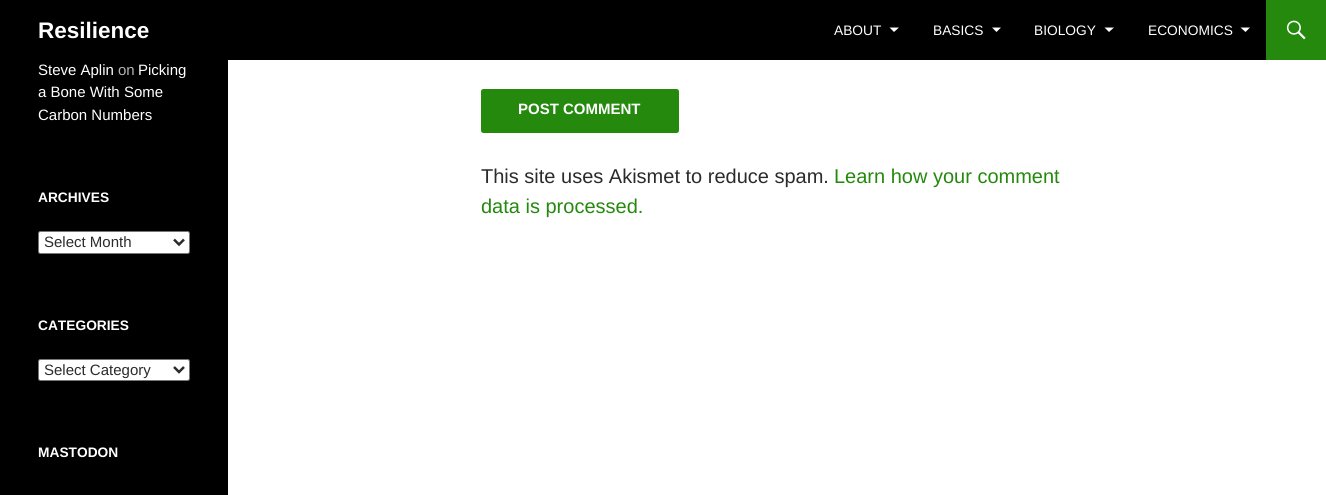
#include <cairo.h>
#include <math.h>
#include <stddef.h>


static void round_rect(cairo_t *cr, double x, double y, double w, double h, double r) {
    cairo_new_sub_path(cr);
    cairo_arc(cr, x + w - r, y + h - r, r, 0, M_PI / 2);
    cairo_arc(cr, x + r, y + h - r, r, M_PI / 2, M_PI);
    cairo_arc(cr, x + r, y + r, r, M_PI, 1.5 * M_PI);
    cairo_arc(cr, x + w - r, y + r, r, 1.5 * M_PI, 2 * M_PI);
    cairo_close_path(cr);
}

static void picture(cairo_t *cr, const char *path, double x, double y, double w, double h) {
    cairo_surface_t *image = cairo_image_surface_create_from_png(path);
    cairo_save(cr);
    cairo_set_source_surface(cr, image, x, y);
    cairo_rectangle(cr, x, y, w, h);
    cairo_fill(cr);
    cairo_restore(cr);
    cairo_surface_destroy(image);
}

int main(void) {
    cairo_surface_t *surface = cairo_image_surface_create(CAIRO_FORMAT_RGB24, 1326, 495);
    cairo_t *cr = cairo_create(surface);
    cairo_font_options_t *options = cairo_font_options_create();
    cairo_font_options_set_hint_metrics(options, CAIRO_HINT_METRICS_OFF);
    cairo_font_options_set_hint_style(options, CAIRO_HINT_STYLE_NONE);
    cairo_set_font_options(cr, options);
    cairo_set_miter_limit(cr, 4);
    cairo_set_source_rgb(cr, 1, 1, 1);
    cairo_paint(cr);
    cairo_set_source_rgb(cr, 0, 0, 0);
    cairo_rectangle(cr, 0, 0, 1266, 60);
    cairo_fill(cr);
    cairo_select_font_face(cr, "Liberation Sans", CAIRO_FONT_SLANT_NORMAL, CAIRO_FONT_WEIGHT_BOLD);
    cairo_set_font_size(cr, 22.5);
    cairo_set_source_rgb(cr, 1, 1, 1);
    cairo_move_to(cr, 38, 38);
    cairo_show_text(cr, "Resilience");
    cairo_select_font_face(cr, "Liberation Sans", CAIRO_FONT_SLANT_NORMAL, CAIRO_FONT_WEIGHT_NORMAL);
    cairo_set_font_size(cr, 13.75);
    cairo_move_to(cr, 834, 35);
    cairo_show_text(cr, "ABOUT");
    cairo_new_path(cr);
    cairo_move_to(cr, 889.5, 27.5);
    cairo_line_to(cr, 899, 27.5);
    cairo_line_to(cr, 894, 32);
    cairo_close_path(cr);
    cairo_fill(cr);
    cairo_move_to(cr, 933, 35);
    cairo_show_text(cr, "BASICS");
    cairo_new_path(cr);
    cairo_move_to(cr, 992, 27.5);
    cairo_line_to(cr, 1001, 27.5);
    cairo_line_to(cr, 996.5, 32);
    cairo_close_path(cr);
    cairo_fill(cr);
    cairo_move_to(cr, 1034, 35);
    cairo_show_text(cr, "BIOLOGY");
    cairo_new_path(cr);
    cairo_move_to(cr, 1104.5, 27.5);
    cairo_line_to(cr, 1114, 27.5);
    cairo_line_to(cr, 1109, 32);
    cairo_close_path(cr);
    cairo_fill(cr);
    cairo_move_to(cr, 1148, 35);
    cairo_show_text(cr, "ECONOMICS");
    cairo_new_path(cr);
    cairo_move_to(cr, 1240.5, 27.5);
    cairo_line_to(cr, 1250, 27.5);
    cairo_line_to(cr, 1245.5, 32);
    cairo_close_path(cr);
    cairo_fill(cr);
    cairo_set_source_rgb(cr, 0.141, 0.537, 0.051);
    cairo_rectangle(cr, 1266, 0, 60, 60);
    cairo_fill(cr);
    picture(cr, "img1.png", 1286, 20, 20, 20);
    cairo_set_source_rgb(cr, 0, 0, 0);
    cairo_rectangle(cr, 0, 60, 228, 435);
    cairo_fill(cr);
    cairo_set_font_size(cr, 15);
    cairo_set_source_rgb(cr, 1, 1, 1);
    cairo_move_to(cr, 38, 75);
    cairo_show_text(cr, "Steve Aplin");
    cairo_set_source_rgb(cr, 0.702, 0.702, 0.702);
    cairo_move_to(cr, 118, 75);
    cairo_show_text(cr, "on");
    cairo_set_source_rgb(cr, 1, 1, 1);
    cairo_move_to(cr, 138, 75);
    cairo_show_text(cr, "Picking");
    cairo_move_to(cr, 38, 97);
    cairo_show_text(cr, "a Bone With Some");
    cairo_move_to(cr, 38, 120);
    cairo_show_text(cr, "Carbon Numbers");
    cairo_select_font_face(cr, "Liberation Sans", CAIRO_FONT_SLANT_NORMAL, CAIRO_FONT_WEIGHT_BOLD);
    cairo_set_font_size(cr, 13.75);
    cairo_move_to(cr, 38, 202);
    cairo_show_text(cr, "ARCHIVES");
    round_rect(cr, 38.5, 231.5, 151, 22, 2);
    cairo_fill_preserve(cr);
    cairo_set_source_rgb(cr, 0.463, 0.463, 0.463);
    cairo_set_line_width(cr, 1);
    cairo_stroke(cr);
    cairo_new_path(cr);
    cairo_move_to(cr, 174, 239.5);
    cairo_line_to(cr, 179, 244.5);
    cairo_line_to(cr, 184, 239.5);
    cairo_set_source_rgb(cr, 0.169, 0.169, 0.169);
    cairo_set_line_width(cr, 2.5);
    cairo_stroke(cr);
    cairo_select_font_face(cr, "Liberation Sans", CAIRO_FONT_SLANT_NORMAL, CAIRO_FONT_WEIGHT_NORMAL);
    cairo_set_font_size(cr, 15);
    cairo_move_to(cr, 44, 247);
    cairo_show_text(cr, "Select Month");
    cairo_select_font_face(cr, "Liberation Sans", CAIRO_FONT_SLANT_NORMAL, CAIRO_FONT_WEIGHT_BOLD);
    cairo_set_font_size(cr, 13.75);
    cairo_set_source_rgb(cr, 1, 1, 1);
    cairo_move_to(cr, 38, 330);
    cairo_show_text(cr, "CATEGORIES");
    round_rect(cr, 38.5, 359.5, 151, 21, 2);
    cairo_fill_preserve(cr);
    cairo_set_source_rgb(cr, 0.463, 0.463, 0.463);
    cairo_set_line_width(cr, 1);
    cairo_stroke(cr);
    cairo_new_path(cr);
    cairo_move_to(cr, 174, 367);
    cairo_line_to(cr, 179, 372);
    cairo_line_to(cr, 184, 367);
    cairo_set_source_rgb(cr, 0.169, 0.169, 0.169);
    cairo_set_line_width(cr, 2.5);
    cairo_stroke(cr);
    cairo_select_font_face(cr, "Liberation Sans", CAIRO_FONT_SLANT_NORMAL, CAIRO_FONT_WEIGHT_NORMAL);
    cairo_set_font_size(cr, 15);
    cairo_move_to(cr, 44, 375);
    cairo_show_text(cr, "Select Category");
    cairo_select_font_face(cr, "Liberation Sans", CAIRO_FONT_SLANT_NORMAL, CAIRO_FONT_WEIGHT_BOLD);
    cairo_set_font_size(cr, 13.75);
    cairo_set_source_rgb(cr, 1, 1, 1);
    cairo_move_to(cr, 38, 457);
    cairo_show_text(cr, "MASTODON");
    cairo_set_source_rgb(cr, 0.141, 0.537, 0.051);
    round_rect(cr, 481, 89, 198, 44, 2.5);
    cairo_fill(cr);
    cairo_set_font_size(cr, 15);
    cairo_set_source_rgb(cr, 1, 1, 1);
    cairo_move_to(cr, 518, 114);
    cairo_show_text(cr, "POST COMMENT");
    cairo_select_font_face(cr, "Liberation Sans", CAIRO_FONT_SLANT_NORMAL, CAIRO_FONT_WEIGHT_NORMAL);
    cairo_set_font_size(cr, 20);
    cairo_set_source_rgb(cr, 0.169, 0.169, 0.169);
    cairo_move_to(cr, 481, 183);
    cairo_show_text(cr, "This site uses Akismet to reduce spam.");
    cairo_set_source_rgb(cr, 0.141, 0.537, 0.051);
    cairo_move_to(cr, 834, 183);
    cairo_show_text(cr, "Learn how your comment");
    cairo_move_to(cr, 481, 213);
    cairo_show_text(cr, "data is processed.");
    cairo_surface_write_to_png(surface, "page.png");
    cairo_font_options_destroy(options);
    cairo_destroy(cr);
    cairo_surface_destroy(surface);
    return 0;
}
